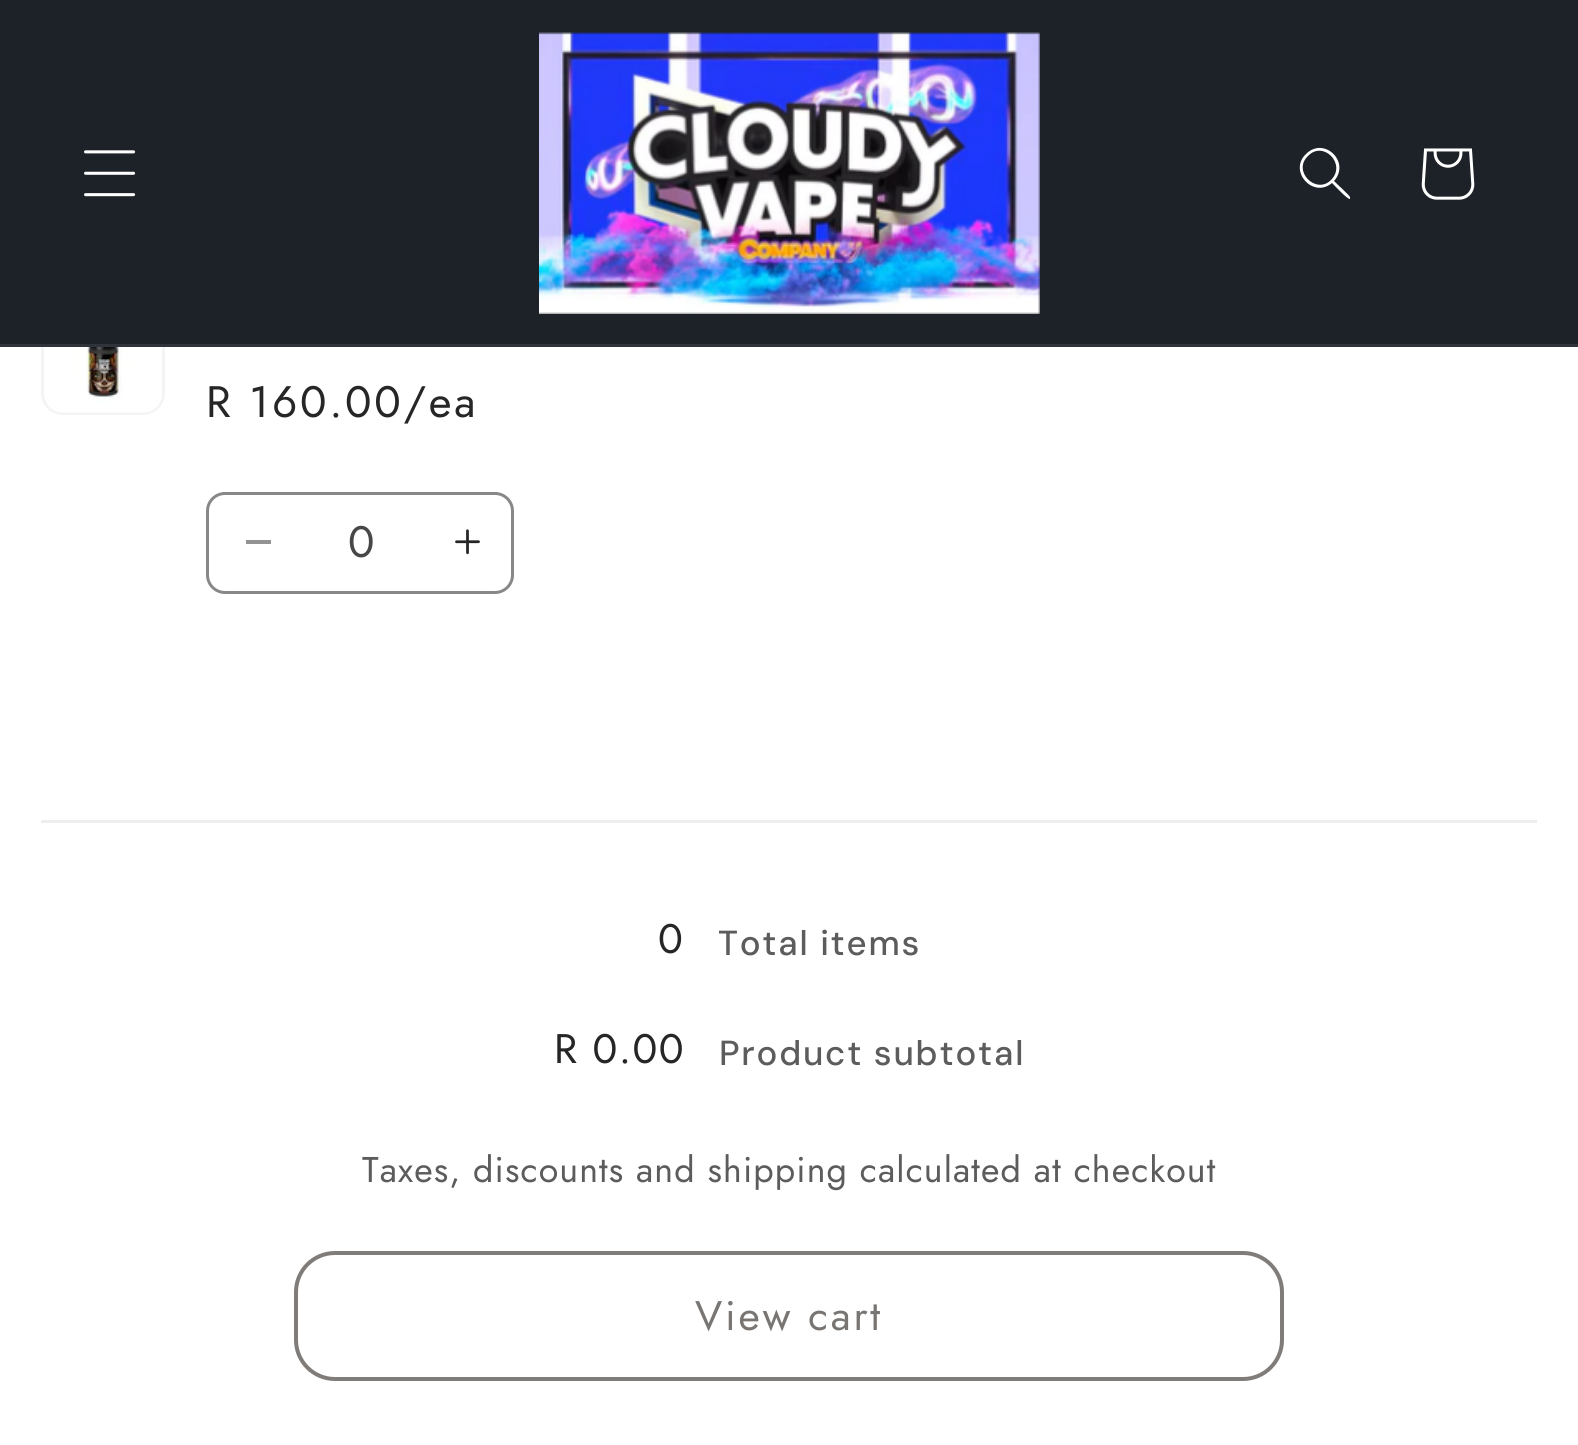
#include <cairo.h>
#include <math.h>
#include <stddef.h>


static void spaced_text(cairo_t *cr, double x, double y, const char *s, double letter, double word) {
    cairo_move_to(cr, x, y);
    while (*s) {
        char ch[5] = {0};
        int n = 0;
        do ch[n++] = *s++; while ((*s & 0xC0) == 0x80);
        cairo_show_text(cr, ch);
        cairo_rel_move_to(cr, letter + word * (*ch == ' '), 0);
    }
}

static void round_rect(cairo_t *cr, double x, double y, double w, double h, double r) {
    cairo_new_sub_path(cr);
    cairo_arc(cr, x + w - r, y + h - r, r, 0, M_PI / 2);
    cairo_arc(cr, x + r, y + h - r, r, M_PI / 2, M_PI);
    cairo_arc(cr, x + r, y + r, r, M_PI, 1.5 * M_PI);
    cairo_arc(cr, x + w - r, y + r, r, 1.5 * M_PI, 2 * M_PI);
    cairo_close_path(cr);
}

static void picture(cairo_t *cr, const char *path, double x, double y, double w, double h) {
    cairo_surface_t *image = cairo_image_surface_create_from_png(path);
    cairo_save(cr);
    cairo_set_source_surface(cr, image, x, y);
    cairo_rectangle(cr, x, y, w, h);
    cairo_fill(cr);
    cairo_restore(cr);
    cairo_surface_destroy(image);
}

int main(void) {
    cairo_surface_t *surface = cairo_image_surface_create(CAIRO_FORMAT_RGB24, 1578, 1445);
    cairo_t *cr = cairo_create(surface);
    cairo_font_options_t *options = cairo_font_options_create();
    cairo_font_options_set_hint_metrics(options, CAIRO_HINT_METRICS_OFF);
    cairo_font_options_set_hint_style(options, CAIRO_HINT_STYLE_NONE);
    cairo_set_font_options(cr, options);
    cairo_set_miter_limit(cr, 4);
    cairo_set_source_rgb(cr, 1, 1, 1);
    cairo_paint(cr);
    round_rect(cr, 42.5, 293.5, 121, 120, 20.5);
    cairo_set_source_rgb(cr, 0.957, 0.957, 0.957);
    cairo_set_line_width(cr, 3);
    cairo_stroke(cr);
    cairo_set_source_rgb(cr, 0.11, 0.133, 0.157);
    cairo_rectangle(cr, 0, 0, 1578, 344);
    cairo_fill(cr);
    cairo_set_source_rgb(cr, 0.18, 0.204, 0.224);
    cairo_rectangle(cr, 0, 344, 1578, 3);
    cairo_fill(cr);
    picture(cr, "img1.png", 84, 150, 52, 47);
    picture(cr, "img2.png", 539, 32, 501, 282);
    cairo_set_source_rgb(cr, 1, 1, 1);
    cairo_set_fill_rule(cr, CAIRO_FILL_RULE_EVEN_ODD);
    cairo_new_path(cr);
    cairo_move_to(cr, 1331, 180);
    cairo_curve_to(cr, 1316, 195, 1292, 171, 1308, 156);
    cairo_curve_to(cr, 1323, 140, 1347, 164, 1331, 180);
    cairo_close_path(cr);
    cairo_move_to(cr, 1332, 183);
    cairo_curve_to(cr, 1313, 199, 1288, 171, 1306, 154);
    cairo_curve_to(cr, 1324, 136, 1351, 162, 1334, 181);
    cairo_curve_to(cr, 1336, 183, 1350, 196, 1350, 197);
    cairo_line_to(cr, 1350, 199);
    cairo_curve_to(cr, 1348, 200, 1334, 185, 1332, 183);
    cairo_close_path(cr);
    cairo_fill(cr);
    picture(cr, "img3.png", 1421, 148, 54, 52);
    picture(cr, "img4.png", 48, 347, 114, 66);
    cairo_select_font_face(cr, "Jost", CAIRO_FONT_SLANT_NORMAL, CAIRO_FONT_WEIGHT_NORMAL);
    cairo_set_font_size(cr, 44);
    cairo_set_source_rgb(cr, 0.149, 0.149, 0.149);
    spaced_text(cr, 206, 417, "R 160.00/ea", 2.75, 0);
    cairo_set_source_rgb(cr, 0.576, 0.576, 0.576);
    cairo_rectangle(cr, 246, 540, 25, 4);
    cairo_fill(cr);
    picture(cr, "img5.png", 455, 529, 25, 26);
    round_rect(cr, 207.5, 493.5, 305, 99, 17.5);
    cairo_set_source_rgb(cr, 0.533, 0.533, 0.533);
    cairo_stroke(cr);
    cairo_set_source_rgb(cr, 0.278, 0.278, 0.278);
    cairo_move_to(cr, 348, 557);
    cairo_show_text(cr, "0");
    cairo_set_source_rgb(cr, 0.933, 0.933, 0.933);
    cairo_rectangle(cr, 41, 820, 1496, 3);
    cairo_fill(cr);
    cairo_set_font_size(cr, 41.25);
    cairo_set_source_rgb(cr, 0.149, 0.149, 0.149);
    spaced_text(cr, 658, 953, "0", 1.5, 0);
    cairo_select_font_face(cr, "DM Sans Medium", CAIRO_FONT_SLANT_NORMAL, CAIRO_FONT_WEIGHT_NORMAL);
    cairo_set_font_size(cr, 34.75);
    cairo_set_source_rgb(cr, 0.361, 0.361, 0.361);
    spaced_text(cr, 718, 955, "Total items", 1.75, 0);
    cairo_select_font_face(cr, "Jost", CAIRO_FONT_SLANT_NORMAL, CAIRO_FONT_WEIGHT_NORMAL);
    cairo_set_font_size(cr, 41.25);
    cairo_set_source_rgb(cr, 0.149, 0.149, 0.149);
    spaced_text(cr, 554, 1063, "R 0.00", 1.5, 0);
    cairo_select_font_face(cr, "DM Sans Medium", CAIRO_FONT_SLANT_NORMAL, CAIRO_FONT_WEIGHT_NORMAL);
    cairo_set_font_size(cr, 34.75);
    cairo_set_source_rgb(cr, 0.361, 0.361, 0.361);
    spaced_text(cr, 719, 1065, "Product subtotal", 1.75, 0);
    cairo_select_font_face(cr, "Jost", CAIRO_FONT_SLANT_NORMAL, CAIRO_FONT_WEIGHT_NORMAL);
    cairo_set_font_size(cr, 35.75);
    spaced_text(cr, 362, 1182, "Taxes, discounts and shipping calculated at checkout", 1.1, 0);
    round_rect(cr, 296, 1253, 986, 126, 39);
    cairo_set_source_rgb(cr, 0.502, 0.486, 0.475);
    cairo_set_line_width(cr, 4);
    cairo_stroke(cr);
    cairo_set_font_size(cr, 41.25);
    cairo_set_source_rgb(cr, 0.475, 0.459, 0.447);
    spaced_text(cr, 695, 1330, "View cart", 2.75, 0);
    cairo_surface_write_to_png(surface, "page.png");
    cairo_font_options_destroy(options);
    cairo_destroy(cr);
    cairo_surface_destroy(surface);
    return 0;
}
